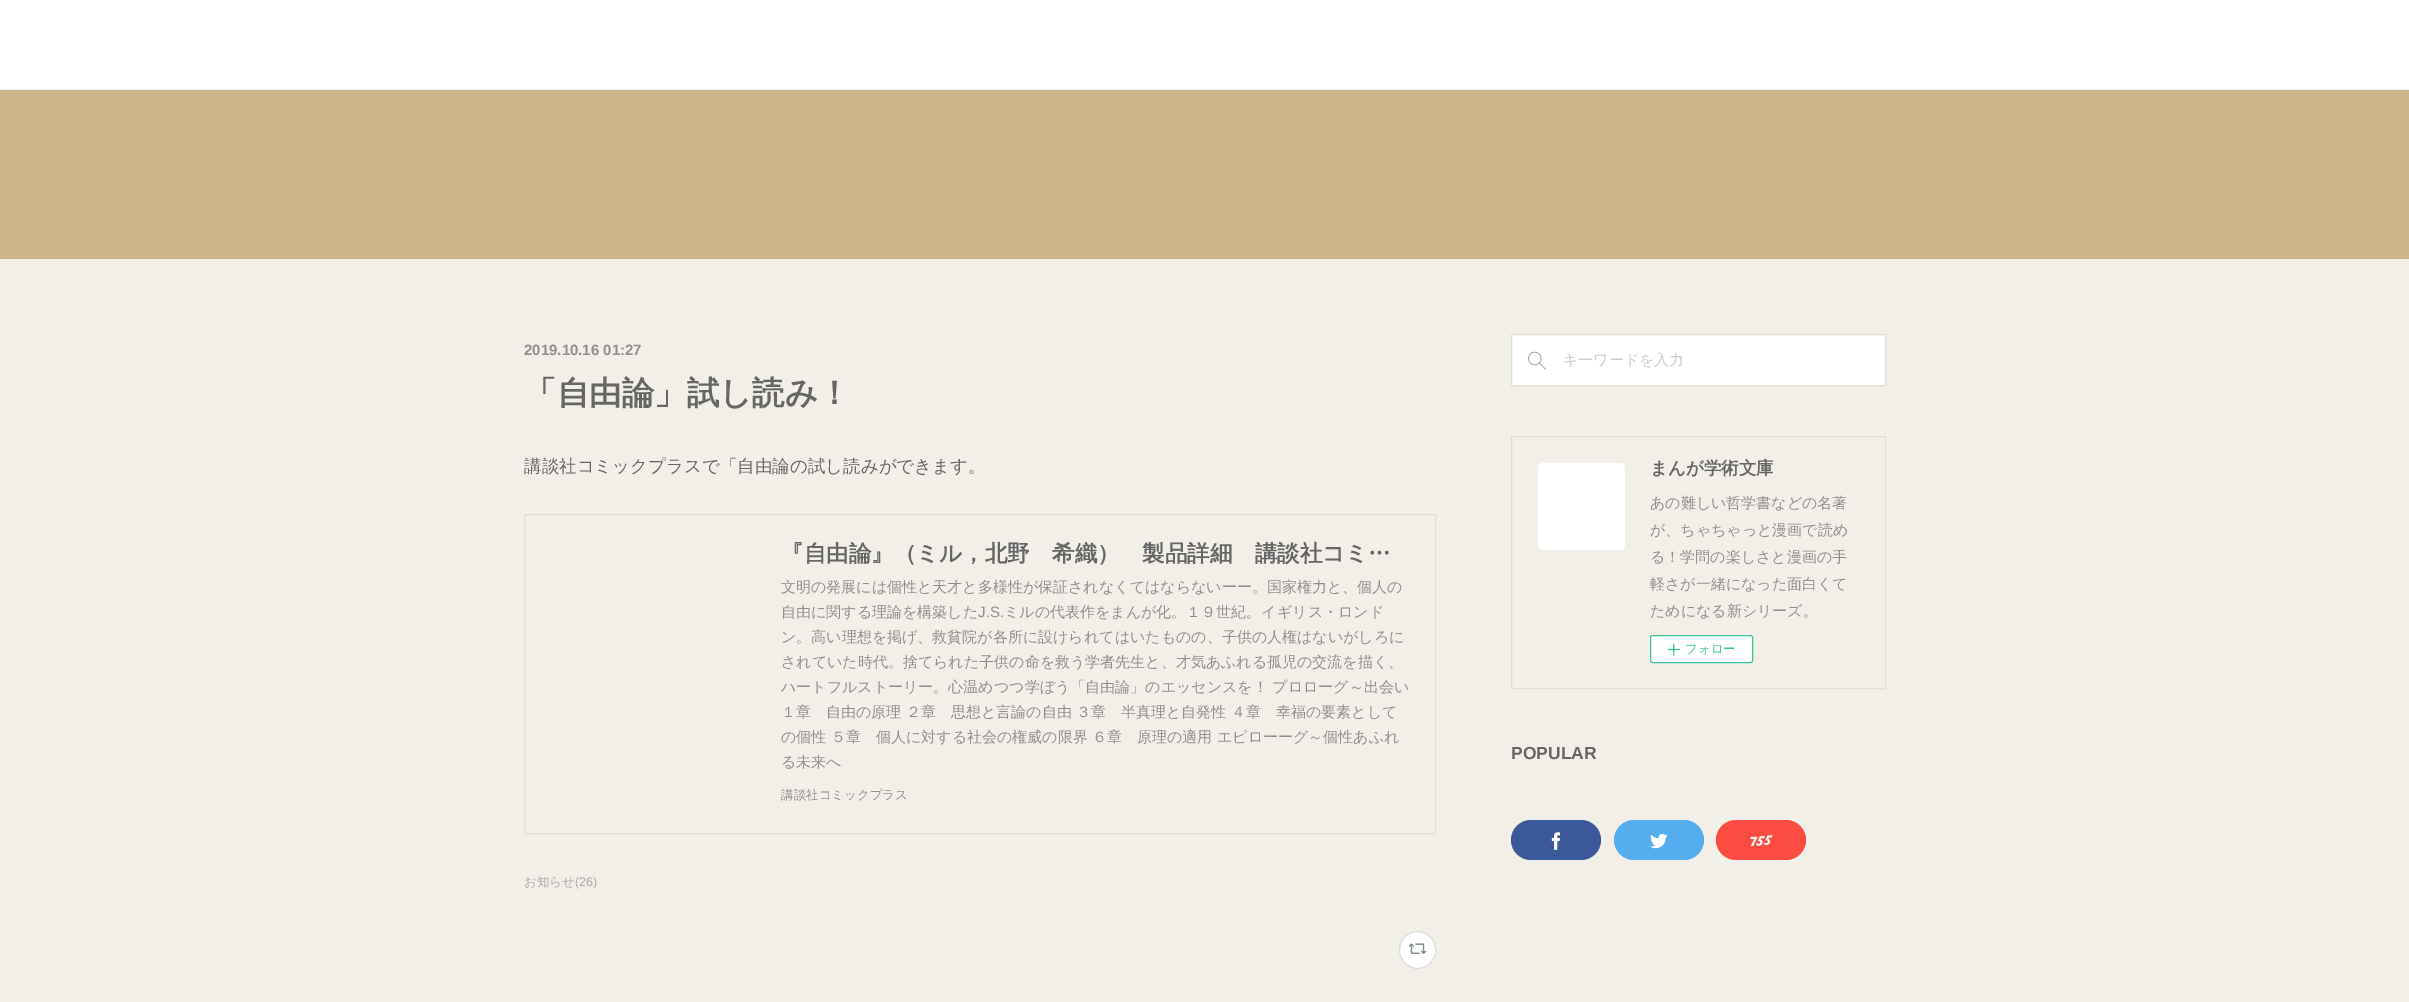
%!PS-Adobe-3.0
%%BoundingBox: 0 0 2409 1002
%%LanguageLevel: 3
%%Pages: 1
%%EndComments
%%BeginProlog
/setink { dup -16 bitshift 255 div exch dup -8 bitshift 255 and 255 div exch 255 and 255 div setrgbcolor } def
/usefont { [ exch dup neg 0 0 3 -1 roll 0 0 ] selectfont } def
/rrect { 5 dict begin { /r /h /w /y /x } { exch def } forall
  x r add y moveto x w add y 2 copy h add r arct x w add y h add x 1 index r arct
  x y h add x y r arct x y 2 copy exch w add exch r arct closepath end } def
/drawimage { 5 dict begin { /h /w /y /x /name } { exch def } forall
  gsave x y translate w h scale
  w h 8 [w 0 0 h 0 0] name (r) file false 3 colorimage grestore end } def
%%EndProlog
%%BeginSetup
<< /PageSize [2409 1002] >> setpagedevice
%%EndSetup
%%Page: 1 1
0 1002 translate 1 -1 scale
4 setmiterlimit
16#F2EFE9 setink
0 0 2409 1002 rectfill
[
    [0 0 2409 89 16#FFFFFF]
    [0 89 2409 1 16#EEEEEE]
    [0 90 2409 169 16#CAB58C]
] { aload pop setink rectfill } forall
/LiberationSans-Bold 15 usefont
16#908F8D setink
524 355 moveto (2019.10.16 01:27) show
/WenQuanYiZenHei-Bold 32.5 usefont
16#666666 setink
524 404 moveto (「自由論」試し読み！) show
/WenQuanYiZenHei-Medium 17.5 usefont
524 472 moveto (講談社コミックプラスで「自由論の試し読みができます。) show
16#E3DED3 setink
524.5 514.5 911 319 rectstroke
/WenQuanYiZenHei-Bold 22.5 usefont
16#666666 setink
781 561 moveto (『自由論』（ミル，北野　希織）　製品詳細　講談社コミ…) show
/WenQuanYiZenHei-Medium 15 usefont
16#908F8D setink
781 592 moveto (文明の発展には個性と天才と多様性が保証されなくてはならないーー。国家権力と、個人の) show
781 617 moveto (自由に関する理論を構築した) show
/LiberationSans-Regular 15 usefont
978 617 moveto (J.S.) show
/WenQuanYiZenHei-Medium 15 usefont
[
    [(ミルの代表作をまんが化。１９世紀。イギリス・ロンド) 1004 617]
    [(ン。高い理想を掲げ、救貧院が各所に設けられてはいたものの、子供の人権はないがしろに) 781 642]
    [(されていた時代。捨てられた子供の命を救う学者先生と、才気あふれる孤児の交流を描く、) 781 667]
    [(ハートフルストーリー。心温めつつ学ぼう「自由論」のエッセンスを！ プロローグ～出会い) 781 692]
    [(１章　自由の原理 ２章　思想と言論の自由) 781 717]
    [(３章　半真理と自発性 ４章　幸福の要素として) 1076 717]
    [(の個性 ５章　個人に対する社会の権威の限界 ６章　原理の適用 エピローーグ～個性あふれ) 781 742]
    [(る未来へ) 781 767]
] { aload pop moveto show } forall
/WenQuanYiZenHei-Medium 12.5 usefont
781 799 moveto (講談社コミックプラス) show
16#ACABA8 setink
524 886 moveto (お知らせ) show
/LiberationSans-Regular 12.5 usefont
575 886 moveto (\(26\)) show
16#FFFFFF setink
1399.5 931.5 36 37 18 rrect gsave fill grestore
16#DDDDDD setink
stroke
(img1.raw) 1408 943 19 11 drawimage
16#FFFFFF setink
1511.5 334.5 moveto 1885.5 334.5 lineto 1885.5 385.5 lineto 1511.5 385.5 lineto closepath gsave fill grestore
16#E3DED3 setink
stroke
(img2.raw) 1528 351 18 19 drawimage
/WenQuanYiZenHei-Medium 15 usefont
16#CCCCCC setink
1563 365 moveto (キーワードを入力) show
16#E3DED3 setink
1511.5 436.5 374 252 rectstroke
16#FFFFFF setink
1538 463 87 87 5 rrect fill
/WenQuanYiZenHei-Bold 17.5 usefont
16#666666 setink
1650 474 moveto (まんが学術文庫) show
/WenQuanYiZenHei-Medium 15 usefont
16#908F8D setink
[
    [(あの難しい哲学書などの名著) 1650 508]
    [(が、ちゃちゃっと漫画で読め) 1650 535]
    [(る！学問の楽しさと漫画の手) 1650 562]
    [(軽さが一緒になった面白くて) 1650 589]
    [(ためになる新シリーズ。) 1650 616]
] { aload pop moveto show } forall
16#FFFFFF setink
1650.5 635.5 102 27 2 rrect gsave fill grestore
16#3DC49D setink
stroke
(img3.raw) 1667 643 13 13 drawimage
/WenQuanYiZenHei-Medium 12.5 usefont
1685 653 moveto (フォロー) show
/LiberationSans-Bold 17.5 usefont
16#666666 setink
1511 759 moveto (POPULAR) show
16#3B5998 setink
1511 820 90 40 20 rrect fill
(img4.raw) 1551 832 9 18 drawimage
16#55ACEE setink
1614 820 90 40 20 rrect fill
(img5.raw) 1650 834 18 15 drawimage
16#FB4C42 setink
1716 820 90 40 20 rrect fill
(img6.raw) 1750 835 23 12 drawimage
showpage
%%EOF
